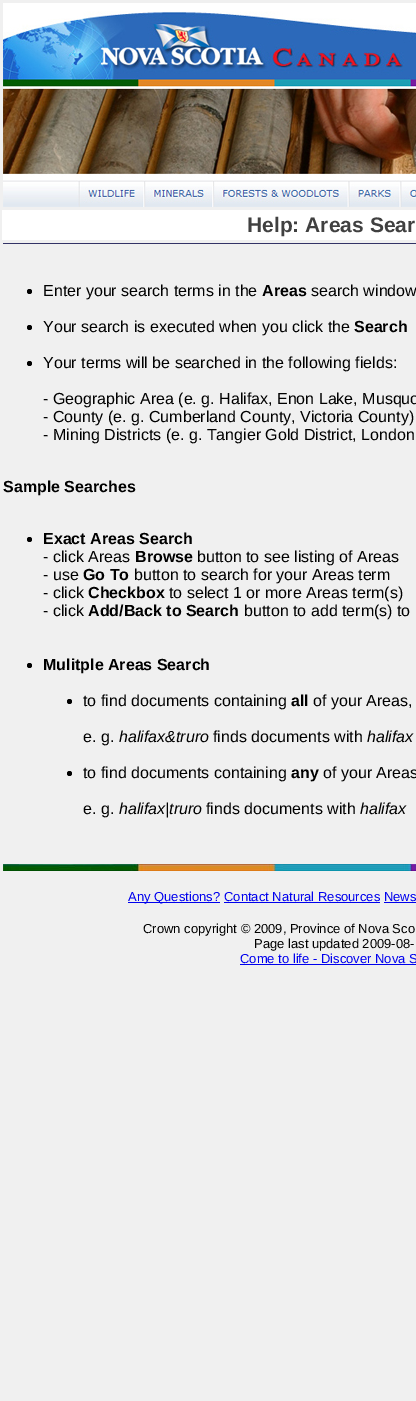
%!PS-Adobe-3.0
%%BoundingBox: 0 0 416 1401
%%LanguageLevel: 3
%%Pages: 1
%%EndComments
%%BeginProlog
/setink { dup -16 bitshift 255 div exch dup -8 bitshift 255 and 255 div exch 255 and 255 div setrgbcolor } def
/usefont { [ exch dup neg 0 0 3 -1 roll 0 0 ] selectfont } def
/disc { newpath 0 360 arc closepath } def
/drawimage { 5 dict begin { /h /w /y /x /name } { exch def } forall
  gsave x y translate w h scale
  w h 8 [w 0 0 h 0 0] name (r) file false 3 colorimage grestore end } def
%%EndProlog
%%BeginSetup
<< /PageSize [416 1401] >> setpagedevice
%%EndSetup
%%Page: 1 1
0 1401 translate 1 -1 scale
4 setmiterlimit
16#F0F0F0 setink
0 0 416 1401 rectfill
(img1.raw) 3 3 413 204 drawimage
16#FFFFFF setink
2 210 414 30 rectfill
/LiberationSans-Bold 21 usefont
16#404040 setink
247 232 moveto (Help: Areas Sear) show
16#333366 setink
3 243 413 1 rectfill
16#000000 setink
29.5 291.5 2.5 disc fill
/LiberationSans-Regular 16 usefont
43 296 moveto (Enter your search terms in the) show
/LiberationSans-Bold 16 usefont
262 296 moveto (Areas) show
/LiberationSans-Regular 16 usefont
311 296 moveto (search window) show
29.5 327.5 2.5 disc fill
43 332 moveto (Your search is executed when you click the) show
/LiberationSans-Bold 16 usefont
354 332 moveto (Search) show
29.5 363.5 2.5 disc fill
/LiberationSans-Regular 16 usefont
[
    [(Your terms will be searched in the following fields:) 43 368]
    [(- Geographic Area \(e. g. Halifax, Enon Lake, Musquo) 43 404]
    [(- County \(e. g. Cumberland County, Victoria County\)) 43 422]
    [(- Mining Districts \(e. g. Tangier Gold District, London) 43 440]
] { aload pop moveto show } forall
/LiberationSans-Bold 16 usefont
3 492 moveto (Sample Searches) show
29.5 539.5 2.5 disc fill
43 544 moveto (Exact Areas Search) show
/LiberationSans-Regular 16 usefont
43 562 moveto (- click Areas) show
/LiberationSans-Bold 16 usefont
135 562 moveto (Browse) show
/LiberationSans-Regular 16 usefont
197 562 moveto (button to see listing of Areas) show
43 580 moveto (- use) show
/LiberationSans-Bold 16 usefont
83 580 moveto (Go To) show
/LiberationSans-Regular 16 usefont
134 580 moveto (button to search for your Areas term) show
43 598 moveto (- click) show
/LiberationSans-Bold 16 usefont
88 598 moveto (Checkbox) show
/LiberationSans-Regular 16 usefont
169 598 moveto (to select 1 or more Areas term\(s\)) show
43 616 moveto (- click) show
/LiberationSans-Bold 16 usefont
88 616 moveto (Add/Back to Search) show
/LiberationSans-Regular 16 usefont
244 616 moveto (button to add term\(s\) to) show
29.5 665.5 2.5 disc fill
/LiberationSans-Bold 16 usefont
43 670 moveto (Mulitple Areas Search) show
69.5 701.5 2.5 disc fill
/LiberationSans-Regular 16 usefont
83 706 moveto (to find documents containing) show
/LiberationSans-Bold 16 usefont
291 706 moveto (all) show
/LiberationSans-Regular 16 usefont
313 706 moveto (of your Areas,) show
83 742 moveto (e. g.) show
/LiberationSans-Italic 16 usefont
119 742 moveto (halifax&truro) show
/LiberationSans-Regular 16 usefont
213 742 moveto (finds documents with) show
/LiberationSans-Italic 16 usefont
367 742 moveto (halifax) show
69.5 773.5 2.5 disc fill
/LiberationSans-Regular 16 usefont
83 778 moveto (to find documents containing) show
/LiberationSans-Bold 16 usefont
291 778 moveto (any) show
/LiberationSans-Regular 16 usefont
323 778 moveto (of your Areas) show
83 814 moveto (e. g.) show
/LiberationSans-Italic 16 usefont
119 814 moveto (halifax|truro) show
/LiberationSans-Regular 16 usefont
206 814 moveto (finds documents with) show
/LiberationSans-Italic 16 usefont
360 814 moveto (halifax) show
(img2.raw) 3 864 413 7 drawimage
16#0000EE setink
128 902 92 1 rectfill
/LiberationSans-Regular 13 usefont
128 901 moveto (Any Questions?) show
224 901 moveto (Contact Natural Resources News) show
224 902 156 1 rectfill
384 902 32 1 rectfill
16#000000 setink
143 933 moveto (Crown copyright © 2009, Province of Nova Sco) show
254 948 moveto (Page last updated 2009-08-) show
16#0000EE setink
240 963 moveto (Come to life - Discover Nova S) show
240 964 176 1 rectfill
showpage
%%EOF
